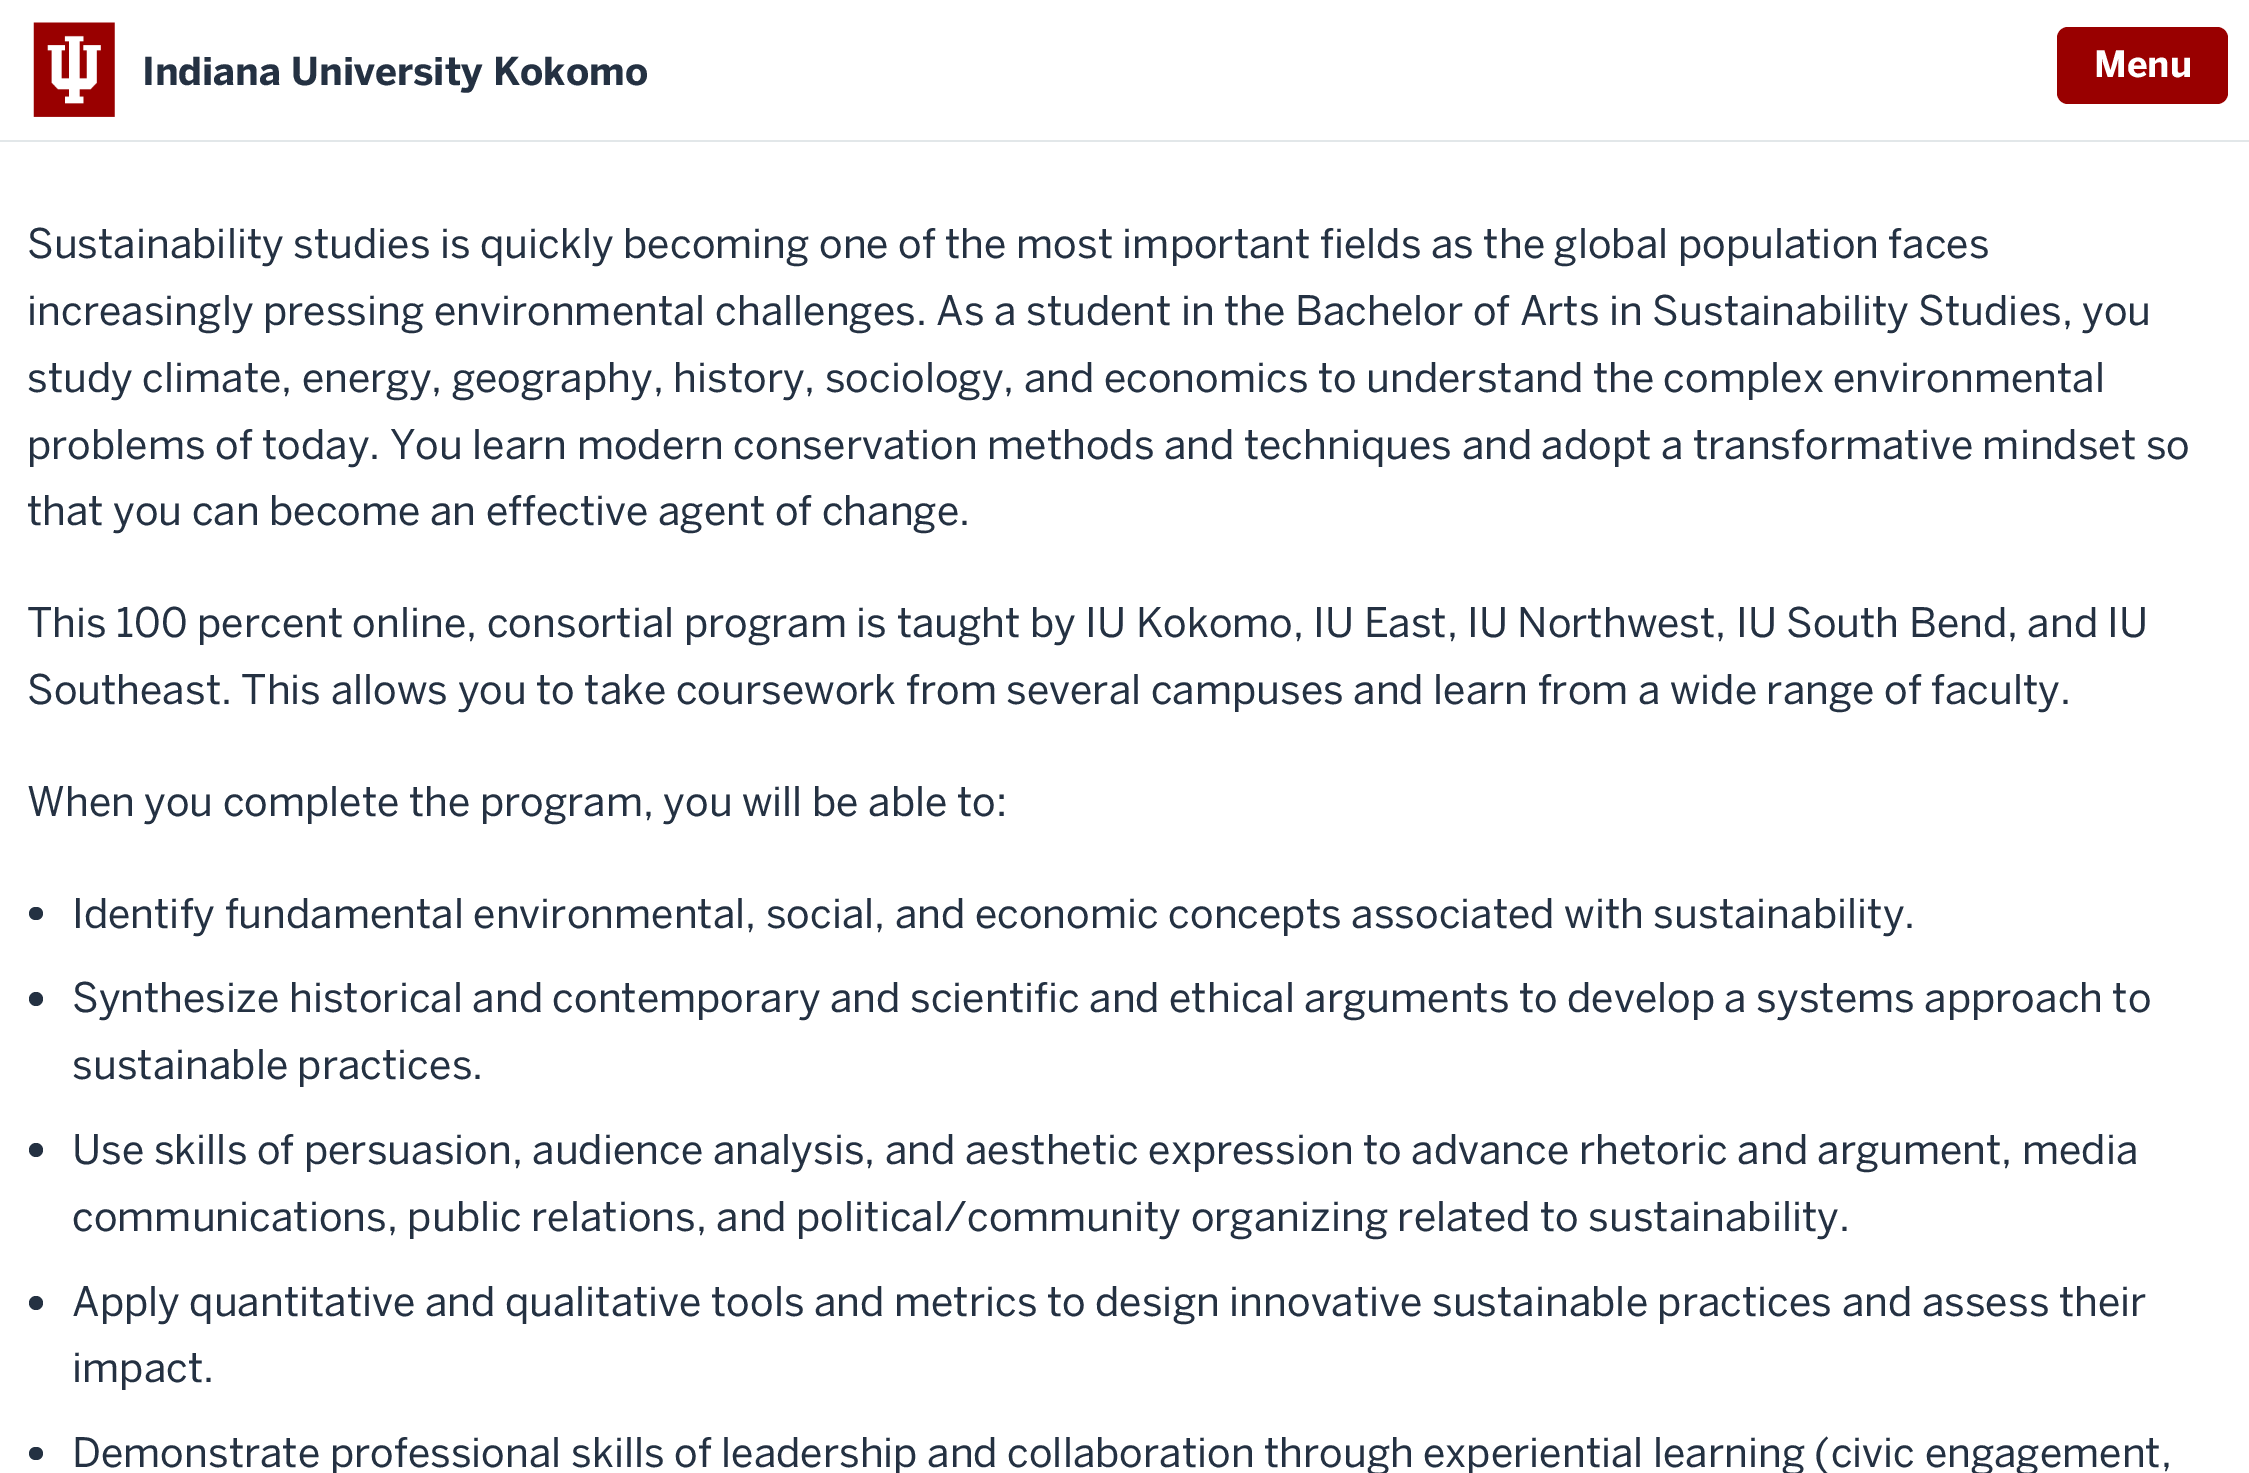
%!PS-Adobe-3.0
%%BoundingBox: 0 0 2249 1473
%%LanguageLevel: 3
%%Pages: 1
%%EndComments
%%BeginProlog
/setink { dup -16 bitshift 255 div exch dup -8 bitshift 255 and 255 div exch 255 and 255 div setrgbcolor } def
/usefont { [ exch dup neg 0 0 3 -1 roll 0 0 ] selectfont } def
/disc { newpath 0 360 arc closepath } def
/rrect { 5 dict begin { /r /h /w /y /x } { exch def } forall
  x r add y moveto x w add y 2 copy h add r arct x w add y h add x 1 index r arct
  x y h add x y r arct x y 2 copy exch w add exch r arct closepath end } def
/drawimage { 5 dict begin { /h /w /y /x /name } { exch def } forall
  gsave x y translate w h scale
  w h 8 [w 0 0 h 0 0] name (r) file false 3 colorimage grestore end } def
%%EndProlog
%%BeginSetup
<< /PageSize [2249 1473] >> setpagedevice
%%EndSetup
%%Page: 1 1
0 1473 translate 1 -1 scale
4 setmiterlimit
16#FFFFFF setink
0 0 2249 1473 rectfill
16#E2E7E9 setink
0 140 2249 2 rectfill
(img1.raw) 33 22 82 95 drawimage
/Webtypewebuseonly-Bold 38.25 usefont
16#243142 setink
142 85 moveto (Indiana University Kokomo) show
16#990000 setink
2057 27 171 77 11 rrect fill
/Webtypewebuseonly-Bold 36 usefont
16#FFFFFF setink
2094 77 moveto (Menu) show
/Webtypewebuseonly-Regular 40.5 usefont
16#243142 setink
[
    [(Sustainability studies is quickly becoming one of the most important fields as the global population faces) 27 258]
    [(increasingly pressing environmental challenges. As a student in the Bachelor of Arts in Sustainability Studies, you) 27 325]
    [(study climate, energy, geography, history, sociology, and economics to understand the complex environmental) 27 392]
    [(problems of today. You learn modern conservation methods and techniques and adopt a transformative mindset so) 27 459]
    [(that you can become an effective agent of change.) 27 525]
    [(This 100 percent online, consortial program is taught by IU Kokomo, IU East, IU Northwest, IU South Bend, and IU) 27 637]
    [(Southeast. This allows you to take coursework from several campuses and learn from a wide range of faculty.) 27 704]
    [(When you complete the program, you will be able to:) 27 816]
] { aload pop moveto show } forall
29 907 14 13 6.5 rrect fill
72 928 moveto (Identify fundamental environmental, social, and economic concepts associated with sustainability.) show
36 999 7 disc fill
72 1012 moveto (Synthesize historical and contemporary and scientific and ethical arguments to develop a systems approach to) show
72 1079 moveto (sustainable practices.) show
36 1150 7 disc fill
72 1164 moveto (Use skills of persuasion, audience analysis, and aesthetic expression to advance rhetoric and argument, media) show
72 1231 moveto (communications, public relations, and political/community organizing related to sustainability.) show
36 1303 7 disc fill
72 1316 moveto (Apply quantitative and qualitative tools and metrics to design innovative sustainable practices and assess their) show
72 1382 moveto (impact.) show
29 1447 14 13 6.5 rrect fill
72 1467 moveto (Demonstrate professional skills of leadership and collaboration through experiential learning \(civic engagement,) show
showpage
%%EOF
